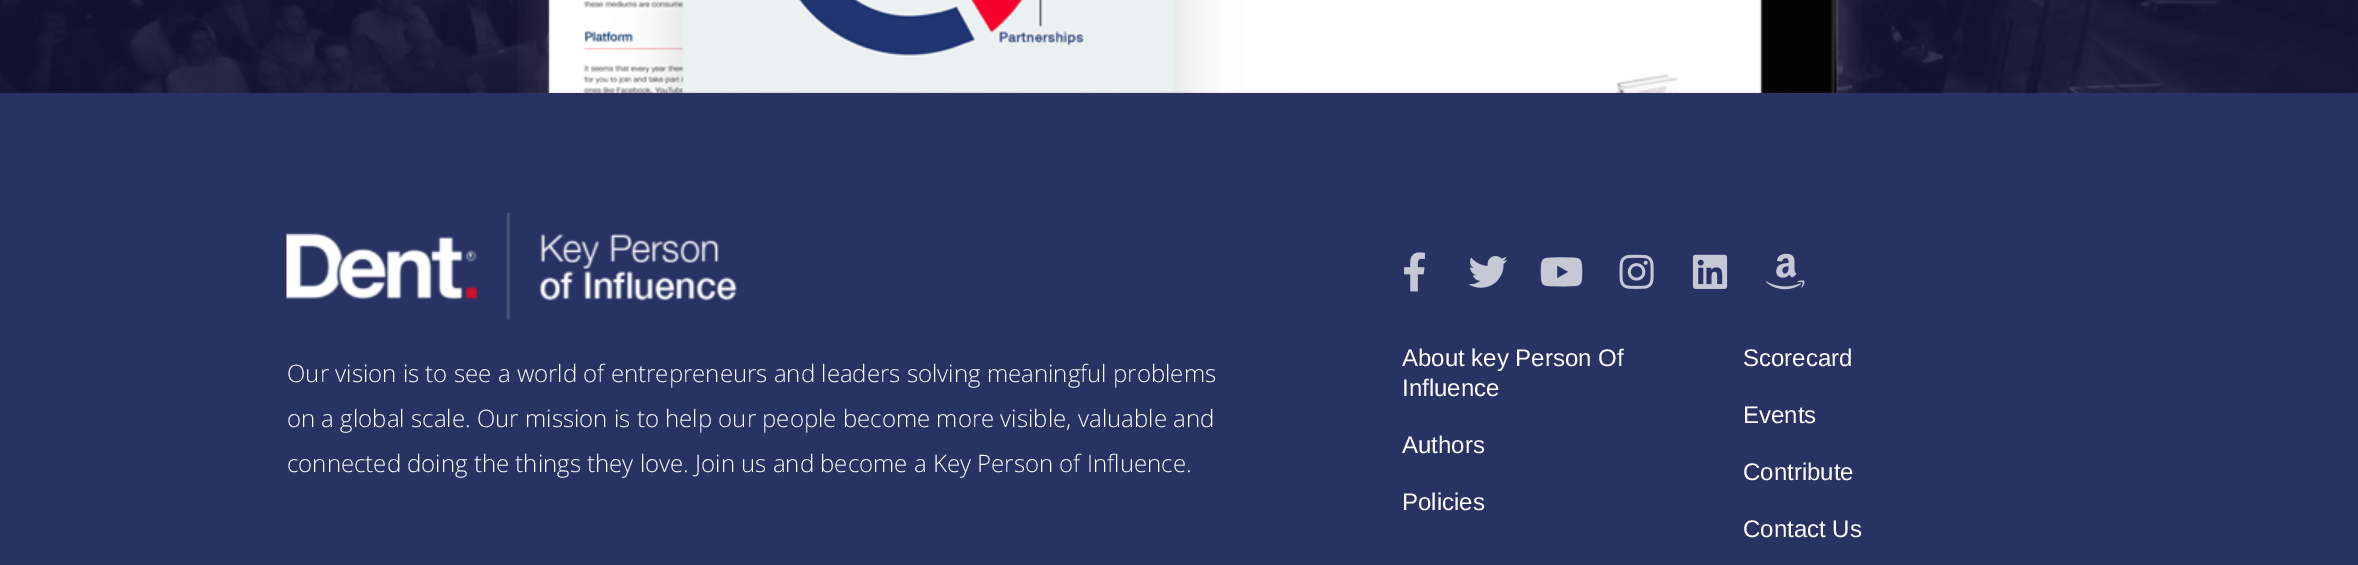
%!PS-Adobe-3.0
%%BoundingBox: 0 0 2358 565
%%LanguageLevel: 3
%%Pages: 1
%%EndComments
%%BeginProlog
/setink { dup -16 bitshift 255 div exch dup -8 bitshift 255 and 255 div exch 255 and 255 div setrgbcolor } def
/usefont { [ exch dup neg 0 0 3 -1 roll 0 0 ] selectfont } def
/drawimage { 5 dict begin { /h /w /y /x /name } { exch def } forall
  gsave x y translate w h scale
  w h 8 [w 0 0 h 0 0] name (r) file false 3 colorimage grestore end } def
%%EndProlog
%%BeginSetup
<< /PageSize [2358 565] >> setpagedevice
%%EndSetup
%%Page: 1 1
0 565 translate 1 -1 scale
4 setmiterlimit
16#FFFFFF setink
0 0 2358 565 rectfill
(img1.raw) 0 0 2358 93 drawimage
(img2.raw) 517 0 1344 93 drawimage
16#283364 setink
0 93 2358 472 rectfill
(img3.raw) 286 213 451 107 drawimage
/OpenSans-Light 24 usefont
16#FFFFFF setink
[
    [(Our vision is to see a world of entrepreneurs and leaders solving meaningful problems) 287 382]
    [(on a global scale. Our mission is to help our people become more visible, valuable and) 287 427]
    [(connected doing the things they love. Join us and become a Key Person of Influence.) 287 472]
] { aload pop moveto show } forall
(img4.raw) 1404 252 21 40 drawimage
(img5.raw) 1468 256 40 32 drawimage
(img6.raw) 1540 257 43 30 drawimage
(img7.raw) 1619 254 35 35 drawimage
(img8.raw) 1692 254 36 35 drawimage
(img9.raw) 1766 253 39 37 drawimage
/LiberationSans-Regular 24 usefont
[
    [(About key Person Of) 1402 366]
    [(Influence) 1402 396]
    [(Authors) 1402 453]
    [(Policies) 1402 510]
    [(Scorecard) 1743 366]
    [(Events) 1743 423]
    [(Contribute) 1743 480]
    [(Contact Us) 1743 537]
] { aload pop moveto show } forall
showpage
%%EOF
